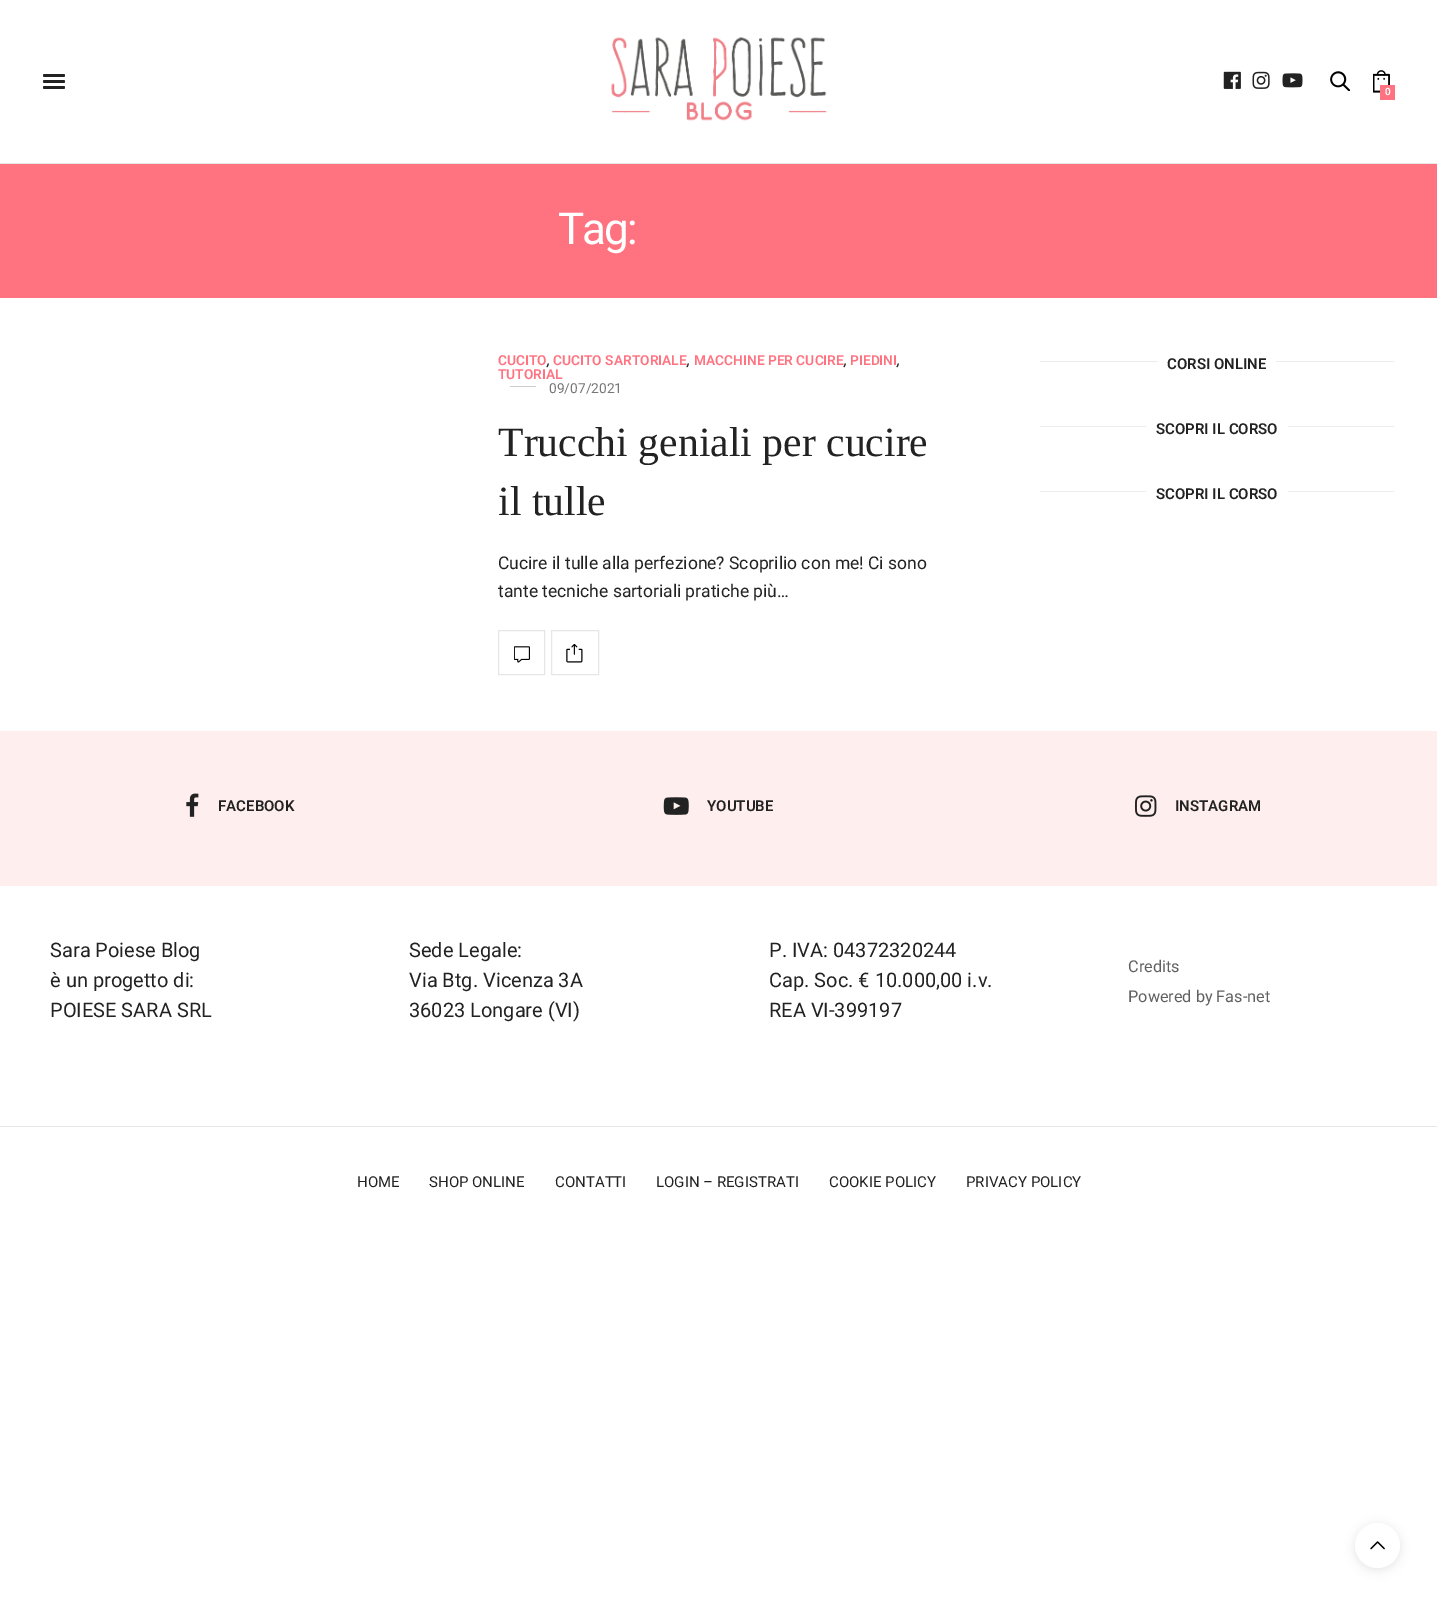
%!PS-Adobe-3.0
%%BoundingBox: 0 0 1437 1604
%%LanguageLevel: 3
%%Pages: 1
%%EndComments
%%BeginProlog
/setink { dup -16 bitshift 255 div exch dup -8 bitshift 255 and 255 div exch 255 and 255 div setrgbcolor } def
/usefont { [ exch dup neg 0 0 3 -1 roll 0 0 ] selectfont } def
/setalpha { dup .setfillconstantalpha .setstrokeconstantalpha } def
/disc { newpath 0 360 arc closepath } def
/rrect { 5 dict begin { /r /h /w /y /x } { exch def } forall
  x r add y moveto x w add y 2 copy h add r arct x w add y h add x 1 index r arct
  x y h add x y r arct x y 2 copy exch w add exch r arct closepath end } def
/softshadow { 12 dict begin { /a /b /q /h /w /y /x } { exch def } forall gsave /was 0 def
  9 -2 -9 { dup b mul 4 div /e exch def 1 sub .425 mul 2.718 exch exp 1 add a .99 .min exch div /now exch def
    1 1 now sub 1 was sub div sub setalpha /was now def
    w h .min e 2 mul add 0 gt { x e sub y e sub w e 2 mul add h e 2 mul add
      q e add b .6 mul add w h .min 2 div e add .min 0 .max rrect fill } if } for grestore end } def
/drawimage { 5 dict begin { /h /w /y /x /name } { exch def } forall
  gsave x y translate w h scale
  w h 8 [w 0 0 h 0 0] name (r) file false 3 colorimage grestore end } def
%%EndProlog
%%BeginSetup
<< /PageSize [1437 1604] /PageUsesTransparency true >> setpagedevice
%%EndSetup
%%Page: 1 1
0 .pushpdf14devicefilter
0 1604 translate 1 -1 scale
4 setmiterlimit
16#FFFFFF setink
0 0 1437 1604 rectfill
16#E6E6E6 setink
0 163 1437 1 rectfill
16#222222 setink
43 74 22 3 1.5 rrect fill
43 80 22 3 1.5 rrect fill
43 86 22 3 1.5 rrect fill
(img1.raw) 611 37 216 84 drawimage
(img2.raw) 1223 71 18 18 drawimage
(img3.raw) 1252 71 18 18 drawimage
(img4.raw) 1282 73 21 15 drawimage
(img5.raw) 1330 71 20 20 drawimage
(img6.raw) 1373 70 17 23 drawimage
16#FF7380 setink
1380 85 15 15 rectfill
/Roboto-SemiBold 10 usefont
16#FFFFFF setink
1385 95 moveto (0) show
16#FF7380 setink
0 164 1437 134 rectfill
/Roboto-Regular 44 usefont
16#FFFFFF setink
558 244 moveto -2 0 (Tag:) ashow
/Roboto-SemiBold 13.75 usefont
16#FF7380 setink
[
    [(CUCITO) 498 365]
    [(CUCITO SARTORIALE) 553 365]
    [(MACCHINE PER CUCIRE) 694 365]
    [(PIEDINI) 850 365]
] { aload pop moveto show } forall
/Roboto-SemiBoldItalic 13.75 usefont
16#222222 setink
[
    [(,) 547 365]
    [(,) 687 365]
    [(,) 844 365]
    [(,) 897 365]
] { aload pop moveto show } forall
/Roboto-SemiBold 13.75 usefont
16#FF7380 setink
498 379 moveto (TUTORIAL) show
16#CCCCCC setink
510 386 26 1 rectfill
/Roboto-Regular 13.75 usefont
16#767676 setink
549 393 moveto (09/07/2021) show
/LiberationSerif-Regular 41.75 usefont
16#222222 setink
498 456 moveto (Trucchi geniali per cucire) show
498 515 moveto (il tulle) show
/Roboto-Regular 17.5 usefont
498 569 moveto (Cucire il tulle alla perfezione? Scoprilio con me! Ci sono) show
498 597 moveto (tante tecniche sartoriali pratiche più…) show
16#E6E6E6 setink
498.5 630.5 46 44 rectstroke
(img7.raw) 514 646 16 17 drawimage
551.5 630.5 47 44 rectstroke
(img8.raw) 566 644 17 19 drawimage
16#EDEDED setink
1040 361 354 1 rectfill
16#FFFFFF setink
1158 361 118 1 rectfill
/Roboto-SemiBold 15 usefont
16#222222 setink
1167 369 moveto (CORSI ONLINE) show
16#EDEDED setink
1040 426 354 1 rectfill
16#FFFFFF setink
1146 426 142 1 rectfill
16#222222 setink
1156 434 moveto (SCOPRI IL CORSO) show
16#EDEDED setink
1040 491 354 1 rectfill
16#FFFFFF setink
1146 491 142 1 rectfill
16#222222 setink
1156 499 moveto (SCOPRI IL CORSO) show
16#FEEEEE setink
0 731 1437 155 rectfill
(img9.raw) 186 793 13 24 drawimage
16#222222 setink
218 811 moveto (FACEBOOK) show
(img10.raw) 663 797 26 18 drawimage
707 811 moveto (YOUTUBE) show
(img11.raw) 1135 795 22 22 drawimage
1175 811 moveto (INSTAGRAM) show
/Roboto-Regular 20 usefont
[
    [(Sara Poiese Blog) 50 957]
    [(è un progetto di:) 50 987]
    [(POIESE SARA SRL) 50 1017]
    [(Sede Legale:) 409 957]
    [(Via Btg. Vicenza 3A) 409 987]
    [(36023 Longare \(VI\)) 409 1017]
    [(P. IVA: 04372320244) 769 957]
    [(Cap. Soc. € 10.000,00 i.v.) 769 987]
    [(REA VI-399197) 769 1017]
] { aload pop moveto show } forall
/Roboto-Regular 16.25 usefont
16#606060 setink
1128 972 moveto (Credits) show
1128 1002 moveto (Powered by Fas-net) show
16#E6E6E6 setink
0 1126 1437 1 rectfill
/Roboto-Regular 15 usefont
16#222222 setink
[
    [(HOME) 357 1187]
    [(SHOP ONLINE) 429 1187]
    [(CONTATTI) 555 1187]
    [(LOGIN – REGISTRATI) 656 1187]
    [(COOKIE POLICY) 829 1187]
    [(PRIVACY POLICY) 966 1187]
] { aload pop moveto show } forall
16#000000 setink
1355 1525 45 45 22.5 5 0.1 softshadow
16#FFFFFF setink
1377.5 1545.5 22.5 disc fill
(img12.raw) 1370 1541 15 9 drawimage
.poppdf14devicefilter showpage
%%EOF
